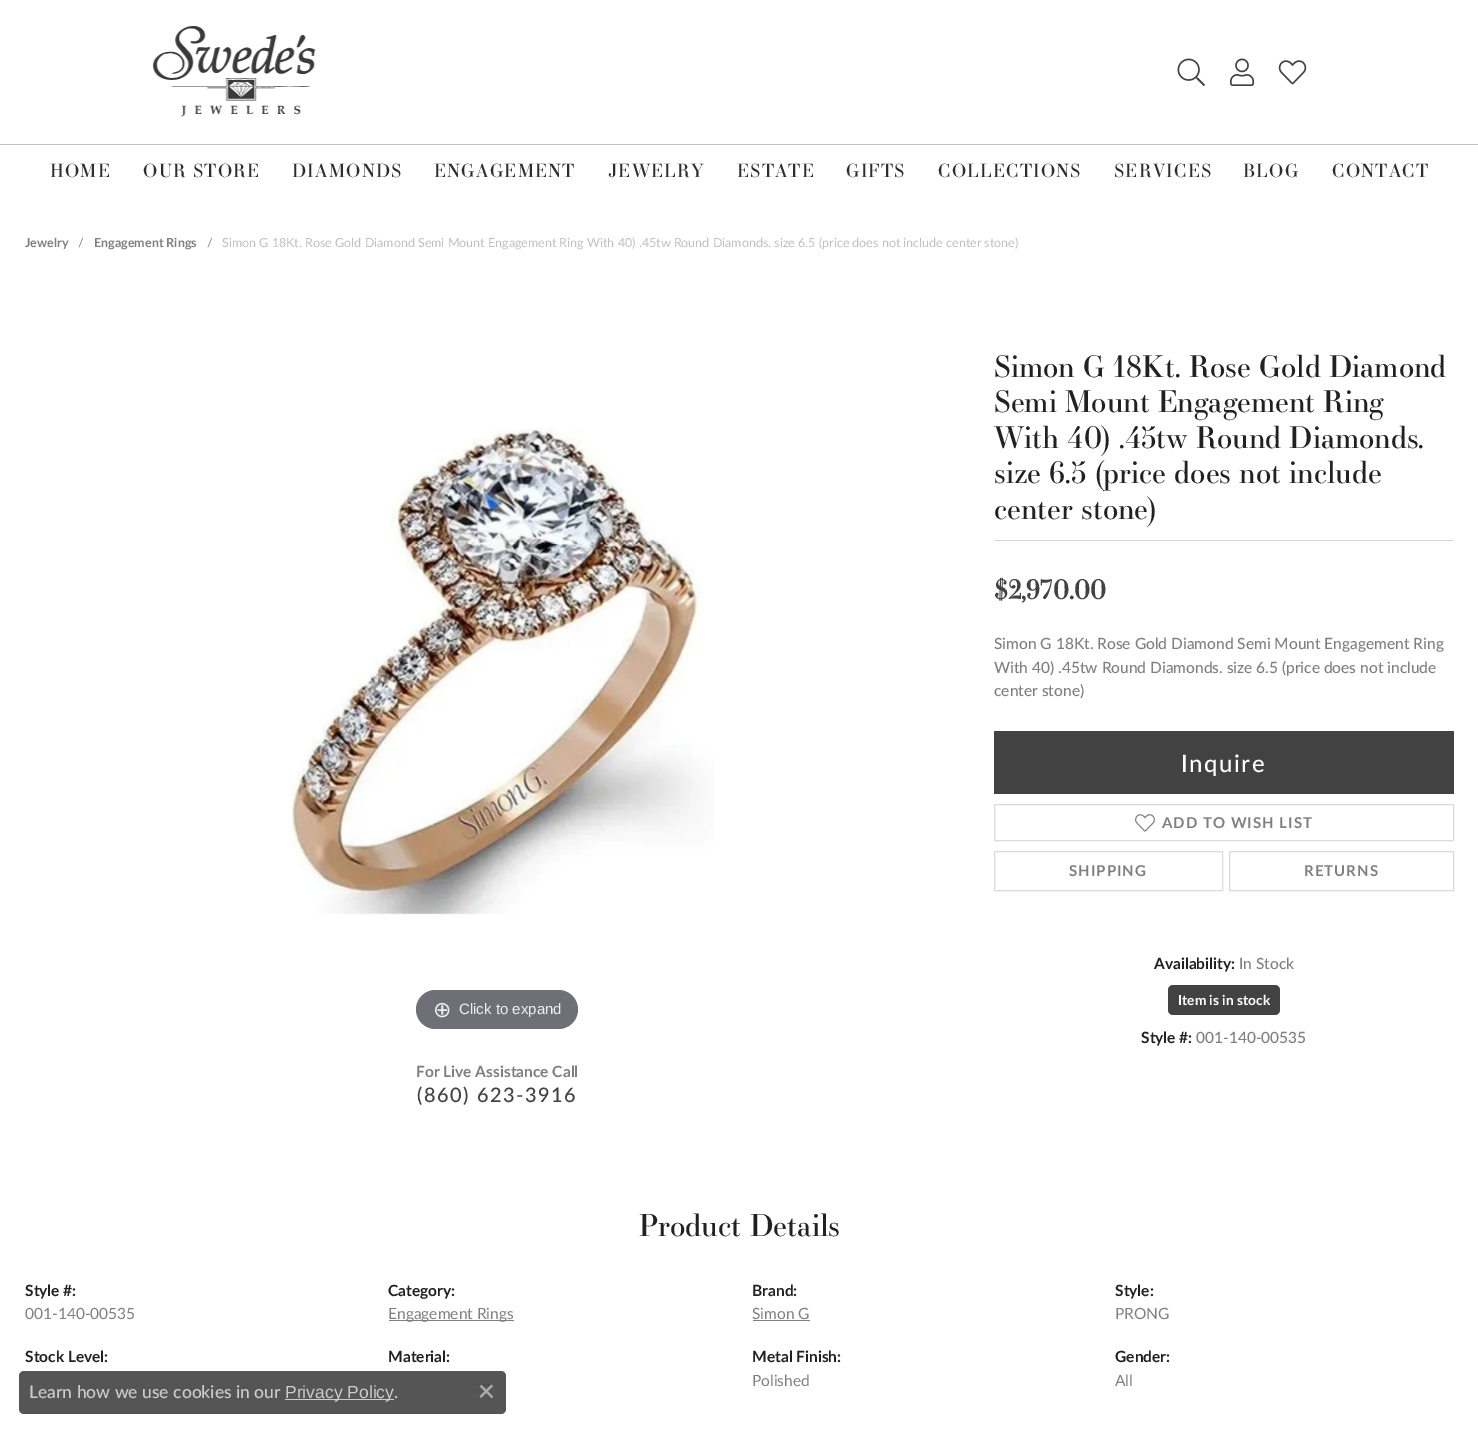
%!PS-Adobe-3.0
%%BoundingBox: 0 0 1478 1432
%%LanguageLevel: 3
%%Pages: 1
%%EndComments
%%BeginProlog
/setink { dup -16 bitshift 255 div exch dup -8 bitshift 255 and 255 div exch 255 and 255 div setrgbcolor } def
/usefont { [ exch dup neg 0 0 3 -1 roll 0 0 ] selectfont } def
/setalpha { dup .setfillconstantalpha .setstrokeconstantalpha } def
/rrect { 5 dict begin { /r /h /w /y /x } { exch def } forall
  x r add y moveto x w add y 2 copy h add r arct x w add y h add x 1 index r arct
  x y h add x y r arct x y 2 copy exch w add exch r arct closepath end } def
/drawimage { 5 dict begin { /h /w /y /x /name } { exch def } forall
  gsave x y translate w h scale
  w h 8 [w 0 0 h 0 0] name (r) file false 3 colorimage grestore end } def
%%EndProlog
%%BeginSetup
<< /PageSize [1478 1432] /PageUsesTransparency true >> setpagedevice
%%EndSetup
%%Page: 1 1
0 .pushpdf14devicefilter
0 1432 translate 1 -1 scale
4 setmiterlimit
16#FFFFFF setink
0 0 1478 1432 rectfill
16#C3C3C3 setink
0 144 1478 1 rectfill
(img1.raw) 152 26 164 91 drawimage
(img2.raw) 1177 58 28 28 drawimage
(img3.raw) 1230 58 25 28 drawimage
(img4.raw) 1278 60 29 25 drawimage
/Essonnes-Regular 18 usefont
16#2D2D2D setink
50 177 moveto 1.25 0 (HOME) ashow
143 177 moveto 1.25 0 (OUR STORE) ashow
292 177 moveto 1.25 0 (DIAMONDS) ashow
434 177 moveto 1.25 0 (ENGAGEMENT) ashow
608 177 moveto 1.25 0 (JEWELRY) ashow
737 177 moveto 1.25 0 (ESTATE) ashow
846 177 moveto 1.25 0 (GIFTS) ashow
938 177 moveto 1.25 0 (COLLECTIONS) ashow
1114 177 moveto 1.25 0 (SERVICES) ashow
1243 177 moveto 1.25 0 (BLOG) ashow
1332 177 moveto 1.25 0 (CONTACT) ashow
/Lato-Bold 12.5 usefont
16#7F7F7F setink
25 247 moveto (Jewelry) show
/Lato-Regular 12.5 usefont
16#858585 setink
78 247 moveto (/) show
/Lato-Bold 12.5 usefont
16#7F7F7F setink
94 247 moveto (Engagement Rings) show
/Lato-Regular 12.5 usefont
16#858585 setink
207 247 moveto (/) show
16#BFBFBF setink
222 247 moveto (Simon G 18Kt. Rose Gold Diamond Semi Mount Engagement Ring With 40\) .45tw Round Diamonds. size 6.5 \(price does not include center stone\)) show
(img5.raw) 290 428 424 487 drawimage
16#6F7077 setink
416 990 162 39 19.5 rrect fill
/DejaVuSans-Regular 22 usefont
16#EEEEEE setink
433 1017 moveto (⊕) show
/LiberationSans-Regular 15 usefont
459 1014 moveto (Click to expand) show
/Lato-Bold 15.5 usefont
16#7F7F7F setink
416 1077 moveto (For Live Assistance Call) show
/Lato-Medium 20 usefont
16#424242 setink
417 1102 moveto 1.5 0 (\(860\) 623-3916) ashow
/Essonnes-Regular 29.6 usefont
16#212121 setink
[
    [(Simon G 18Kt. Rose Gold Diamond) 994 377]
    [(Semi Mount Engagement Ring) 994 412]
    [(With 40\) .45tw Round Diamonds.) 994 448]
    [(size 6.5 \(price does not include) 994 483]
    [(center stone\)) 994 519]
] { aload pop moveto show } forall
16#D7D7D7 setink
994 540 460 1 rectfill
/Essonnes-Bold 26 usefont
16#424242 setink
994 599 moveto ($2,970.00) show
/Lato-Medium 15.5 usefont
16#7F7F7F setink
[
    [(Simon G 18Kt. Rose Gold Diamond Semi Mount Engagement Ring) 994 649]
    [(With 40\) .45tw Round Diamonds. size 6.5 \(price does not include) 994 673]
    [(center stone\)) 994 696]
] { aload pop moveto show } forall
16#424242 setink
994 731 460 63 rectfill
/Lato-Medium 24 usefont
16#FFFFFF setink
1181 772 moveto 1.5 0 (Inquire) ashow
16#DBDBDB setink
994.5 804.5 459 36 rectstroke
(img6.raw) 1135 814 20 18 drawimage
/Lato-Bold 15 usefont
16#7F7F7F setink
1162 828 moveto 1 0 (ADD TO WISH LIST) ashow
16#DBDBDB setink
994.5 851.5 228 39 rectstroke
16#7F7F7F setink
1069 876 moveto 1 0 (SHIPPING) ashow
16#DBDBDB setink
1229.5 851.5 224 39 rectstroke
16#7F7F7F setink
1304 876 moveto 1 0 (RETURNS) ashow
/Lato-Bold 15.5 usefont
16#212121 setink
1154 969 moveto (Availability:) show
/Lato-Medium 15.5 usefont
16#7F7F7F setink
1239 969 moveto (In Stock) show
16#424242 setink
1168 985 112 30 5 rrect fill
/Lato-Bold 13.75 usefont
16#FFFFFF setink
1178 1005 moveto (Item is in stock) show
/Lato-Bold 15.5 usefont
16#212121 setink
1141 1043 moveto (Style #:) show
/Lato-Medium 15.5 usefont
16#7F7F7F setink
1196 1043 moveto (001-140-00535) show
/Essonnes-Regular 30 usefont
16#212121 setink
639 1236 moveto (Product Details) show
/Lato-Bold 15.5 usefont
25 1296 moveto (Style #:) show
/Lato-Regular 15.5 usefont
16#7F7F7F setink
25 1319 moveto (001-140-00535) show
/Lato-Bold 15.5 usefont
16#212121 setink
25 1362 moveto (Stock Level:) show
388 1296 moveto (Category:) show
16#7F7F7F setink
389 1320 125 1 rectfill
/Lato-Regular 15.5 usefont
388 1319 moveto (Engagement Rings) show
/Lato-Bold 15.5 usefont
16#212121 setink
388 1362 moveto (Material:) show
752 1296 moveto (Brand:) show
/Lato-Regular 15.5 usefont
16#7F7F7F setink
752 1319 moveto (Simon G) show
753 1320 57 1 rectfill
/Lato-Bold 15.5 usefont
16#212121 setink
752 1362 moveto (Metal Finish:) show
/Lato-Regular 15.5 usefont
16#7F7F7F setink
752 1386 moveto (Polished) show
/Lato-Bold 15.5 usefont
16#212121 setink
1115 1296 moveto (Style:) show
/Lato-Regular 15.5 usefont
16#7F7F7F setink
1115 1319 moveto (PRONG) show
/Lato-Bold 15.5 usefont
16#212121 setink
1115 1362 moveto (Gender:) show
/Lato-Regular 15.5 usefont
16#7F7F7F setink
1115 1386 moveto (All) show
0.9 setalpha
16#424242 setink
19 1371 487 43 5 rrect fill
/Lato-Medium 17.5 usefont
1 setalpha
16#CCCCCC setink
29 1398 moveto (Learn how we use cookies in our) show
285 1399 109 1 rectfill
/LiberationSans-Regular 17.5 usefont
285 1398 moveto (Privacy Policy) show
/Lato-Medium 17.5 usefont
394 1398 moveto (.) show
(img7.raw) 479 1384 15 15 drawimage
.poppdf14devicefilter showpage
%%EOF
